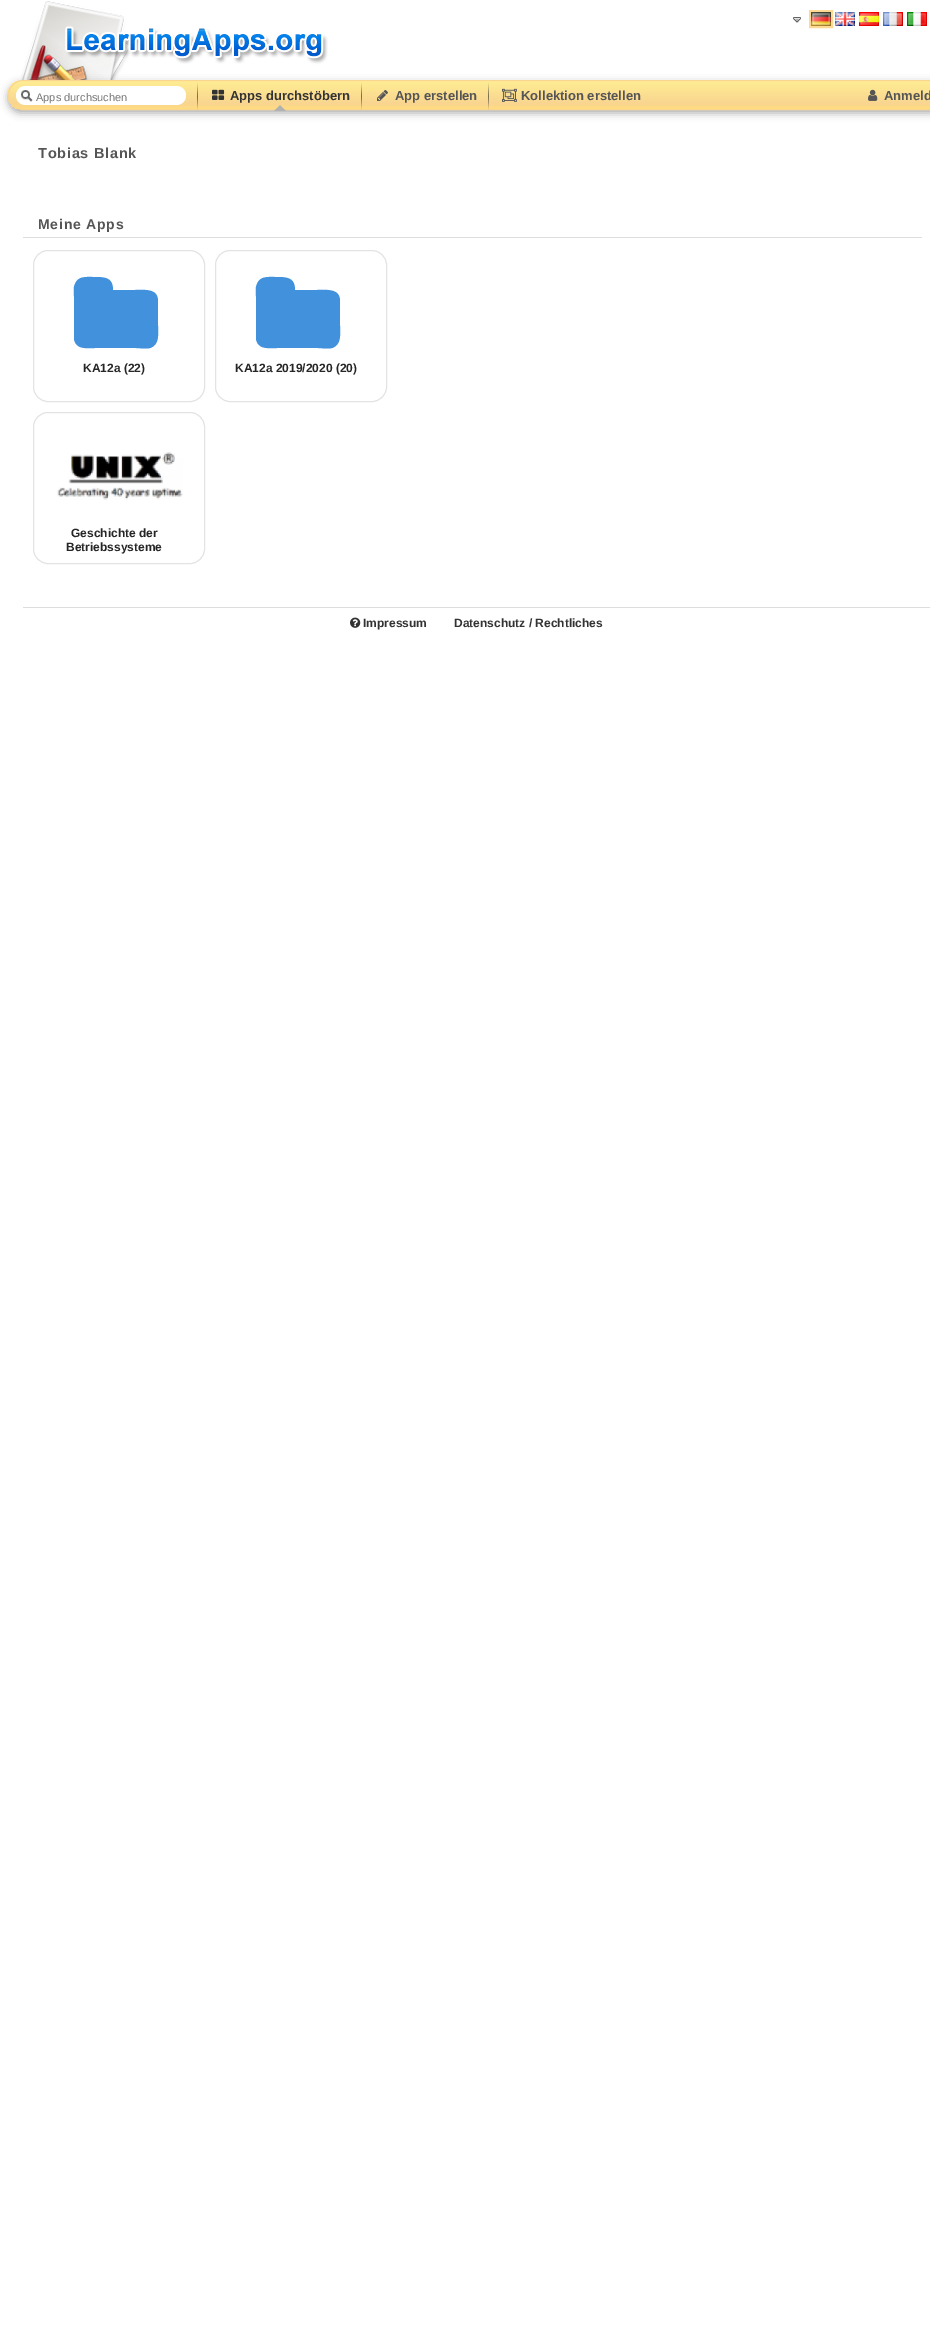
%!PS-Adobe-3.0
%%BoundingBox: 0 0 930 2339
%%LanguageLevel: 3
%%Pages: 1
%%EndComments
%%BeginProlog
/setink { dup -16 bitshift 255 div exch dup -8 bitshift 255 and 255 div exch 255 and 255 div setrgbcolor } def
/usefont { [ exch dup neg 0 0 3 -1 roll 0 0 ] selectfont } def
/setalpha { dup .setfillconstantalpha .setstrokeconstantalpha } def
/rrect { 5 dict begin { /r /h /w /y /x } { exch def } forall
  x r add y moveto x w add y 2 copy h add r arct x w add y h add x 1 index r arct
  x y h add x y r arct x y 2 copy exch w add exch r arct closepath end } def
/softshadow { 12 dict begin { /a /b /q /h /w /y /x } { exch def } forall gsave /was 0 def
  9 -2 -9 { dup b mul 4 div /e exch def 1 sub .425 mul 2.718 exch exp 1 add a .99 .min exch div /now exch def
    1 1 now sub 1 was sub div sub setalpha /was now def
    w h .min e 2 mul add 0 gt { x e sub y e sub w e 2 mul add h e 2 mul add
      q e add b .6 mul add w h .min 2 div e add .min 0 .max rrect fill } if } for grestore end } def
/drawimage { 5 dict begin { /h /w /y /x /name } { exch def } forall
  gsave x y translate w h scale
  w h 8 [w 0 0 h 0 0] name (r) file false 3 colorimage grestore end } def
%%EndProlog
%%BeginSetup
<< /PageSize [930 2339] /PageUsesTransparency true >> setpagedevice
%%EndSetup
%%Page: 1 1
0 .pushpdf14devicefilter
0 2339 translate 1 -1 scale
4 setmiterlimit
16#FFFFFF setink
0 0 930 2339 rectfill
(img1.raw) 21 1 307 79 drawimage
16#FED993 setink
2 setlinewidth
810 11 22 16 rectstroke
(img2.raw) 793 17 8 6 drawimage
(img3.raw) 811 12 20 14 drawimage
(img4.raw) 835 12 20 14 drawimage
(img5.raw) 859 12 20 14 drawimage
(img6.raw) 883 12 20 14 drawimage
(img7.raw) 907 12 20 14 drawimage
16#AAAAAA setink
8 83 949 30 15 4 1 softshadow
gsave
8 80 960 30 15 rrect clip newpath
gsave 8 81 moveto 930 81 lineto 930 109 lineto 8 109 lineto closepath clip newpath
<< /ShadingType 2 /ColorSpace /DeviceRGB /Coords [488 81 488 109] /Extend [true true] /Function << /FunctionType 3 /Domain [0 1] /Functions [<< /FunctionType 2 /Domain [0 1] /C0 [1 0.929 0.576] /C1 [1 0.929 0.576] /N 1 >> << /FunctionType 2 /Domain [0 1] /C0 [1 0.929 0.576] /C1 [0.976 0.835 0.565] /N 1 >> << /FunctionType 2 /Domain [0 1] /C0 [0.976 0.835 0.565] /C1 [1 0.867 0.498] /N 1 >>] /Bounds [0.01 0.82] /Encode [0 1 0 1 0 1] >> >> shfill grestore
grestore
16#F9D590 setink
1 setlinewidth
8.5 80.5 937 29 14.5 rrect stroke
16#FFFFFF setink
16 86 170 19 9.5 rrect fill
(img8.raw) 21 90 12 12 drawimage
/LiberationSans-Regular 11 usefont
16#757575 setink
36 101 moveto (Apps durchsuchen) show
(img9.raw) 197 82 1 28 drawimage
(img10.raw) 274 105 12 6 drawimage
(img11.raw) 212 89 13 11 drawimage
/LiberationSans-Bold 13 usefont
16#333333 setink
230 100 moveto (Apps durchstöbern) show
(img9.raw) 361 82 1 28 drawimage
(img12.raw) 377 90 11 11 drawimage
16#555555 setink
395 100 moveto (App erstellen) show
(img9.raw) 488 82 1 28 drawimage
(img13.raw) 502 88 15 14 drawimage
521 100 moveto (Kollektion erstellen) show
(img14.raw) 868 89 10 12 drawimage
884 100 moveto (Anmeld) show
/LiberationSans-Bold 14.5 usefont
38 158 moveto 0.75 0 (Tobias Blank) ashow
16#DDDDDD setink
23 237 899 1 rectfill
/LiberationSans-Bold 14 usefont
16#555555 setink
38 229 moveto 0.75 0 (Meine Apps) ashow
16#E3E3E3 setink
33.5 250.5 171 151 14.5 rrect stroke
16#4191DC setink
158 301 moveto 158 325 lineto 158 333 160 345 150 348 curveto 146 349 139 348 136 348 curveto 95 348 lineto 87 348 76 350 74 339 curveto 74 297 lineto 74 293 73 288 75 284 curveto 78 276 86 277 93 277 curveto 104 277 113 277 113 290 curveto 135 290 lineto 144 290 158 288 158 301 curveto closepath fill
/LiberationSans-Bold 12 usefont
16#262626 setink
83 372 moveto (KA12a \(22\)) show
16#E3E3E3 setink
215.5 250.5 171 151 14.5 rrect stroke
16#4191DC setink
340 301 moveto 340 325 lineto 340 333 342 345 332 348 curveto 328 349 321 348 318 348 curveto 277 348 lineto 269 348 258 350 256 339 curveto 256 297 lineto 256 293 255 288 257 284 curveto 260 276 268 277 275 277 curveto 286 277 295 277 295 290 curveto 317 290 lineto 326 290 340 288 340 301 curveto closepath fill
16#262626 setink
235 372 moveto (KA12a 2019/2020 \(20\)) show
16#E3E3E3 setink
33.5 412.5 171 151 14.5 rrect stroke
(img15.raw) 57 452 126 48 drawimage
16#262626 setink
71 537 moveto (Geschichte der) show
66 551 moveto (Betriebssysteme) show
16#DDDDDD setink
23 607 907 1 rectfill
(img16.raw) 350 617 11 11 drawimage
16#333333 setink
363 627 moveto (Impressum) show
454 627 moveto (Datenschutz / Rechtliches) show
.poppdf14devicefilter showpage
%%EOF
